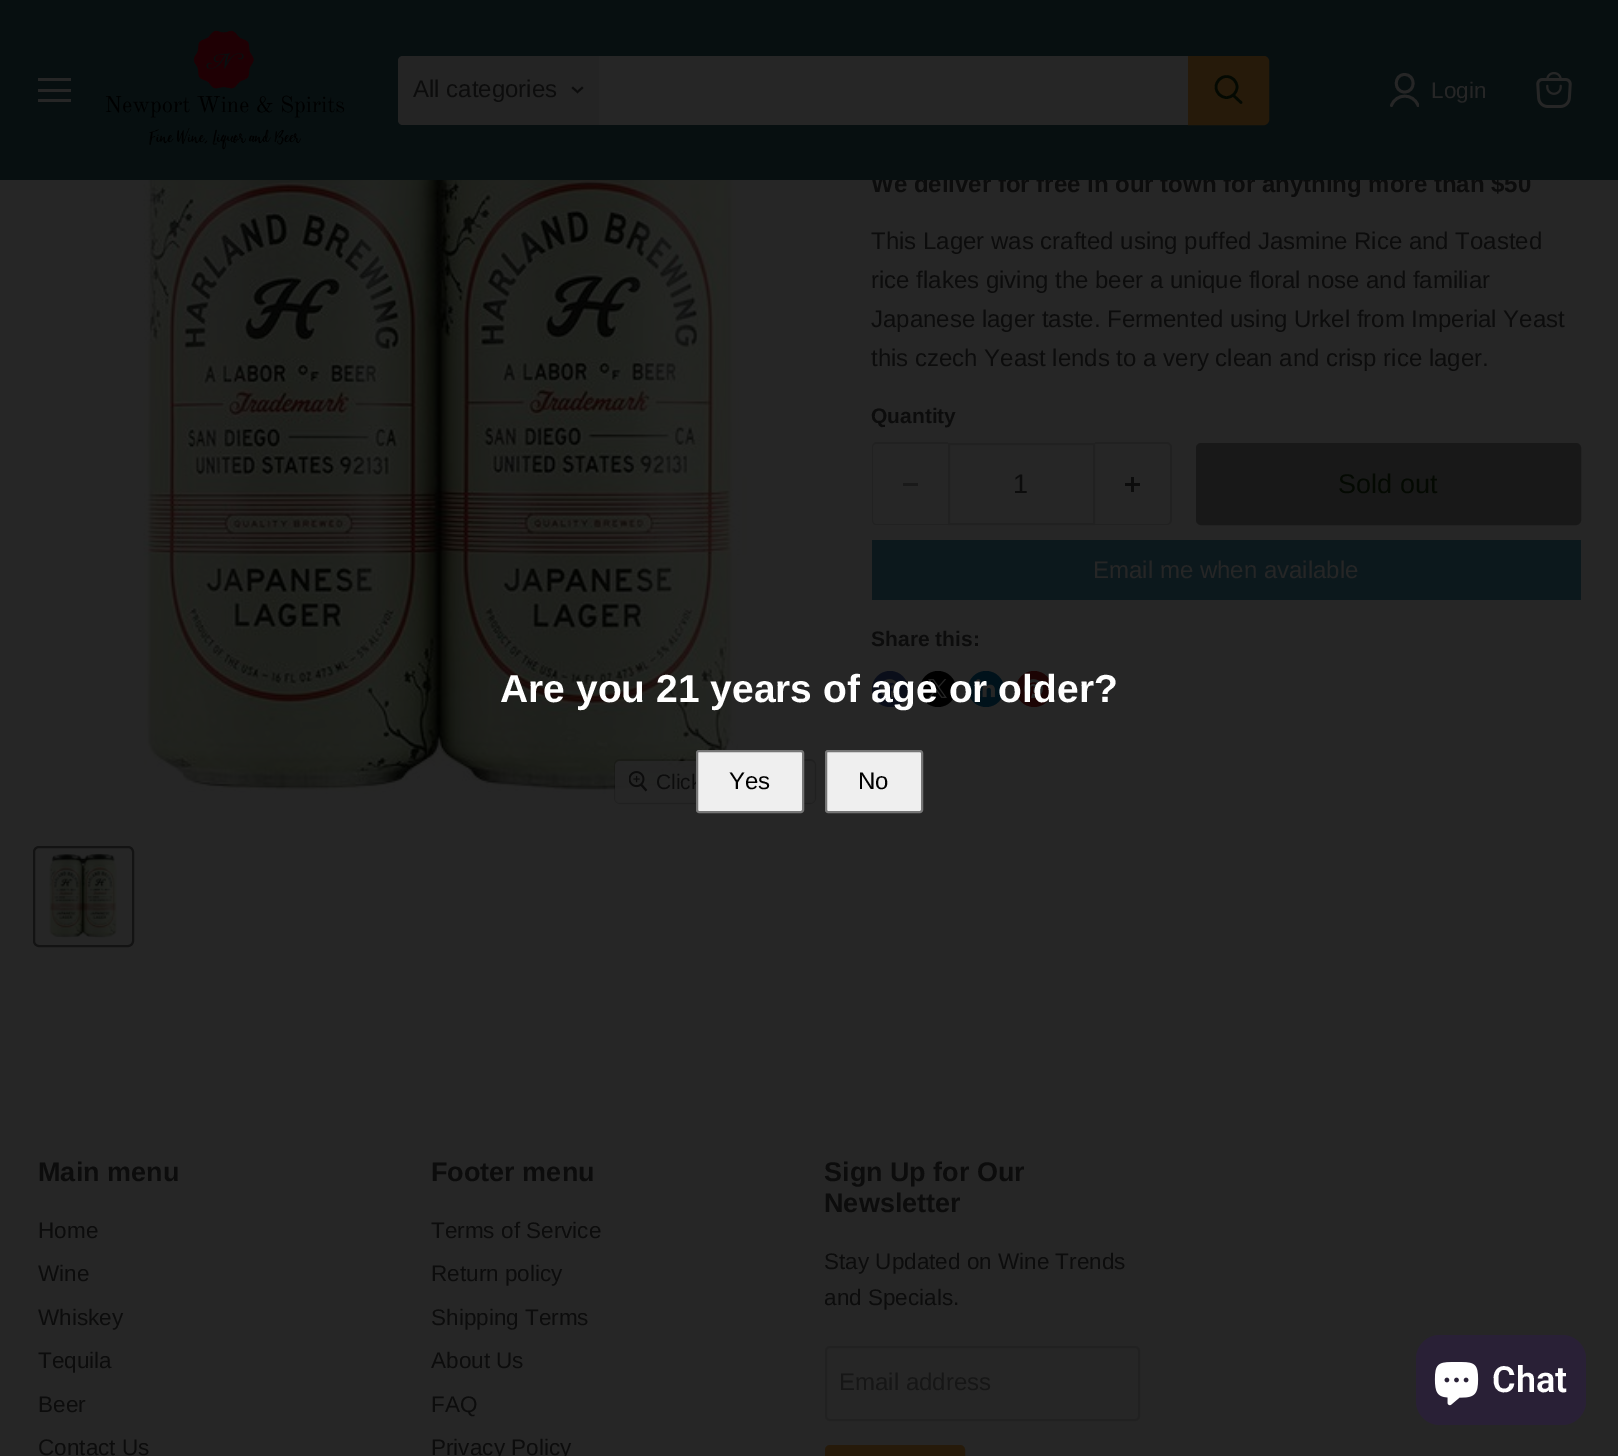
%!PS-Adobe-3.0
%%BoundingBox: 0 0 1618 1456
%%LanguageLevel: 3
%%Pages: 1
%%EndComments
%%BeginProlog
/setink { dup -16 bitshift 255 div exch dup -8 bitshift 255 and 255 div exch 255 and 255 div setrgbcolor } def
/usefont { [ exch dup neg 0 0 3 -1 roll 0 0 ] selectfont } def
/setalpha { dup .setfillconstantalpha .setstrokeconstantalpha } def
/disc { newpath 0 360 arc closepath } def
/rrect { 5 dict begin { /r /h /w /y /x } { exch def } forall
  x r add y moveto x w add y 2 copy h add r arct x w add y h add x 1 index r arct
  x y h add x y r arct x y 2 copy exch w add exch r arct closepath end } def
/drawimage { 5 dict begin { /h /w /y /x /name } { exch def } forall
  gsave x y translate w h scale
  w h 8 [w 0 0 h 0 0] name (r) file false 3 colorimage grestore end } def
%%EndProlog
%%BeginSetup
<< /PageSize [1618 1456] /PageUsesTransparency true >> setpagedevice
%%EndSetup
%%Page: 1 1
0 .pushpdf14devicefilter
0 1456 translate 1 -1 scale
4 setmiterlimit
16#262626 setink
0 0 1618 1456 rectfill
/LiberationSans-Bold 24 usefont
16#0C0C0C setink
871 192 moveto (We deliver for free in our town for anything more than $50) show
[
    [0 0 1618 180 16#070F10]
    [38 78 33 3 16#262626]
    [38 89 33 3 16#262626]
    [38 99 33 3 16#262626]
] { aload pop setink rectfill } forall
(img1.raw) 105 30 240 120 drawimage
16#242424 setink
403 56 moveto 599 56 lineto 599 125 lineto 403 125 lineto 400 125 398 123 398 120 curveto 398 61 lineto 398 58 400 56 403 56 curveto closepath fill
/LiberationSans-Regular 24 usefont
16#0C0C0C setink
413 97 moveto (All categories) show
1.9 setlinewidth
2 setlinecap
577.5 92 moveto 582 88 lineto 577.5 92 moveto 573 88 lineto stroke
16#262626 setink
599 56 589 69 rectfill
16#261A0A setink
1189 57 moveto 1264 57 lineto 1266 57 1268 59 1268 61 curveto 1268 120 lineto 1268 122 1266 124 1264 124 curveto 1189 124 lineto closepath gsave fill grestore
2 setlinewidth
0 setlinecap
stroke
16#040902 setink
2.6 setlinewidth
1 setlinecap
1241 102.5 moveto 1233.5 95.5 lineto stroke
0 setlinecap
1226.5 87 10.5 disc stroke
16#262626 setink
2.8 setlinewidth
1 setlinecap
1 setlinejoin
1404.5 92 moveto 1416 92 1416 74.5 1404.5 74.5 curveto 1393.5 74.5 1393.5 92 1404.5 92 curveto closepath stroke
gsave
1389 72 30 36 rectclip
1418 105.5 moveto 1413.5 93 1396 93 1391.5 105.5 curveto stroke
grestore
/LiberationSans-Regular 22.5 usefont
1431 98 moveto (Login) show
(img2.raw) 1536 72 36 36 drawimage
/LiberationSans-Regular 24 usefont
16#0C0C0C setink
[
    [(This Lager was crafted using puffed Jasmine Rice and Toasted) 871 249]
    [(rice flakes giving the beer a unique floral nose and familiar) 871 288]
    [(Japanese lager taste. Fermented using Urkel from Imperial Yeast) 871 327]
    [(this czech Yeast lends to a very clean and crisp rice lager.) 871 366]
] { aload pop moveto show } forall
/LiberationSans-Bold 21 usefont
871 423 moveto (Quantity) show
16#212121 setink
876 442 moveto 948 442 lineto 948 525 lineto 876 525 lineto 874 525 872 523 872 520 curveto 872 447 lineto 872 445 874 442 876 442 curveto closepath 876 444 moveto 948 444 lineto 948 524 lineto 876 524 lineto 874 524 873 522 873 520 curveto 873 447 lineto 873 445 874 444 876 444 curveto closepath eofill
16#191919 setink
903 483 15 3 rectfill
16#212121 setink
2 setlinewidth
0 setlinecap
0 setlinejoin
949 444 145 80 rectstroke
/LiberationSans-Regular 27 usefont
16#0C0C0C setink
1013 493 moveto (1) show
16#212121 setink
1095 442 moveto 1167 442 lineto 1169 442 1172 445 1172 447 curveto 1172 520 lineto 1172 523 1169 525 1167 525 curveto 1095 525 lineto closepath 1095 444 moveto 1167 444 lineto 1169 444 1170 445 1170 447 curveto 1170 520 lineto 1170 522 1169 524 1167 524 curveto 1095 524 lineto closepath eofill
(img3.raw) 1125 477 15 15 drawimage
16#181818 setink
1197 444 383 80 4 rrect gsave fill grestore
stroke
16#040902 setink
1338 493 moveto (Sold out) show
16#0C181C setink
872 540 709 60 rectfill
/LiberationSans-Regular 24 usefont
16#262626 setink
1093 578 moveto (Email me when available) show
/LiberationSans-Bold 21 usefont
16#0C0C0C setink
871 646 moveto (Share this:) show
16#0A0E1A setink
890 689 18 disc fill
(img4.raw) 880 679 19 19 drawimage
16#000000 setink
938 689 18 disc fill
(img5.raw) 928 679 19 19 drawimage
16#00121B setink
986 689 18 disc fill
(img6.raw) 976 679 19 19 drawimage
16#1C0404 setink
1034 689 18 disc fill
(img7.raw) 1024 679 19 19 drawimage
(img8.raw) 143 180 604 614 drawimage
0.15 setalpha
16#000000 setink
615 760 200 43 5 rrect stroke
0.9 setalpha
16#262626 setink
615 761 200 42 5 rrect fill
1 setalpha
(img9.raw) 629 771 19 21 drawimage
/LiberationSans-Regular 21 usefont
16#0C0C0C setink
656 789 moveto (Click) show
16#131313 setink
34 847 99 99 5 rrect stroke
(img10.raw) 49 851 70 87 drawimage
/LiberationSans-Bold 39 usefont
16#FFFFFF setink
500 702 moveto (Are you 21 years of age or older?) show
16#EFEFEF setink
697 751 106 61 2 rrect gsave fill grestore
16#767676 setink
stroke
/LiberationSans-Regular 24 usefont
16#000000 setink
729 789 moveto (Yes) show
16#EFEFEF setink
826 751 96 61 2 rrect gsave fill grestore
16#767676 setink
stroke
16#000000 setink
858 789 moveto (No) show
/LiberationSans-Bold 27 usefont
16#0C0C0C setink
38 1181 moveto (Main menu) show
/LiberationSans-Regular 22.5 usefont
[
    [(Home) 38 1238]
    [(Wine) 38 1281]
    [(Whiskey) 38 1325]
    [(Tequila) 38 1368]
    [(Beer) 38 1412]
    [(Contact Us) 38 1455]
] { aload pop moveto show } forall
/LiberationSans-Bold 27 usefont
431 1181 moveto (Footer menu) show
/LiberationSans-Regular 22.5 usefont
[
    [(Terms of Service) 431 1238]
    [(Return policy) 431 1281]
    [(Shipping Terms) 431 1325]
    [(About Us) 431 1368]
    [(FAQ) 431 1412]
    [(Privacy Policy) 431 1455]
] { aload pop moveto show } forall
/LiberationSans-Bold 27 usefont
824 1181 moveto (Sign Up for Our) show
824 1212 moveto (Newsletter) show
/LiberationSans-Regular 22.5 usefont
824 1269 moveto (Stay Updated on Wine Trends) show
824 1305 moveto (and Specials.) show
16#212121 setink
826 1347 313 73 4 rrect stroke
/LiberationSans-Regular 24 usefont
16#161616 setink
839 1390 moveto (Email address) show
16#261A0A setink
826 1446 138 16 4 rrect gsave fill grestore
stroke
16#292036 setink
1416 1335 170 90 24 rrect fill
(img11.raw) 1434 1362 45 44 drawimage
/Roboto-SemiBold 36 usefont
16#FFFFFF setink
1492 1392 moveto (Chat) show
.poppdf14devicefilter showpage
%%EOF
